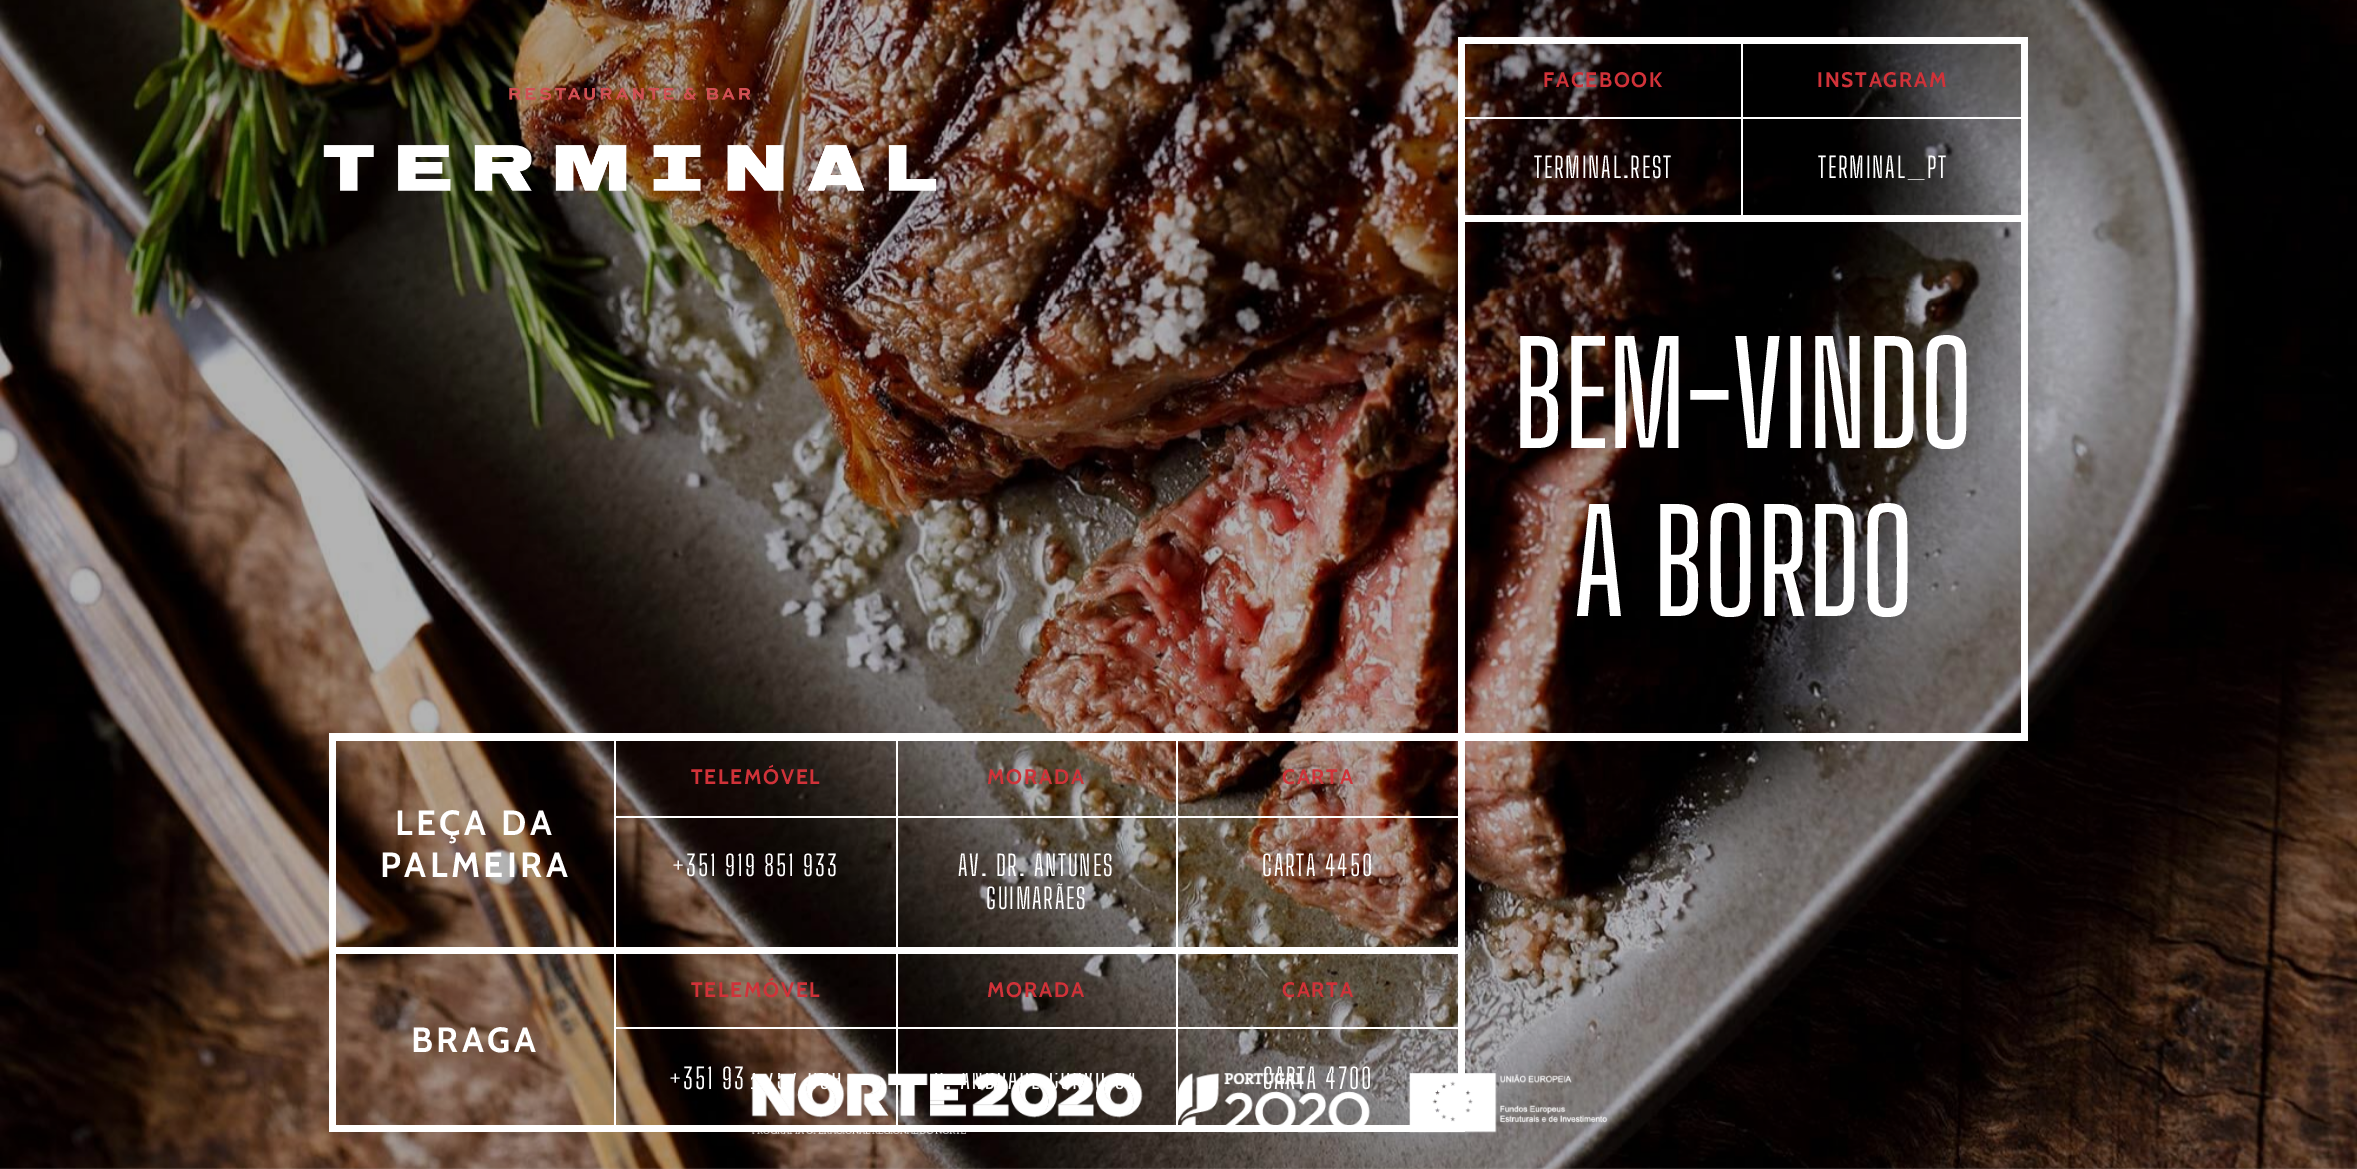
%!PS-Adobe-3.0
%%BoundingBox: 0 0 2357 1169
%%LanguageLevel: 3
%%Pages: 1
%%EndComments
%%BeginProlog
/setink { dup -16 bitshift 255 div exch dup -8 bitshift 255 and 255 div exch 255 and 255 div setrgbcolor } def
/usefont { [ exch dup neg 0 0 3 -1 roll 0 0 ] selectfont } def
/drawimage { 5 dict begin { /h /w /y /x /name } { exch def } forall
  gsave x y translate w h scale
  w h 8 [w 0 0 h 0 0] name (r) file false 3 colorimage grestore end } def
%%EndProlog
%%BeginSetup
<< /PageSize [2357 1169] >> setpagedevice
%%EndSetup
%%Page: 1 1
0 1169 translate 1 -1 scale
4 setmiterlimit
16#FFFFFF setink
0 0 2357 1169 rectfill
(img1.raw) 0 0 2357 1169 drawimage
[
    [1458 37 3 700 16#FFFFFF]
    [1461 37 567 7 16#FFFFFF]
    [2021 37 7 178 16#FFFFFF]
    [1461 37 4 178 16#FFFFFF]
    [1741 44 2 171 16#FFFFFF]
    [1465 117 556 2 16#FFFFFF]
] { aload pop setink rectfill } forall
/Cabin-Bold 21 usefont
16#D13239 setink
1543 87 moveto 1.75 0 (FACEBOOK) ashow
1817 87 moveto 1.75 0 (INSTAGRAM) ashow
/BigShouldersDisplay-Regular 28 usefont
16#FFFFFF setink
1534 178 moveto 1.75 0 (TERMINAL.REST) ashow
1818 178 moveto 1.75 0 (TERMINAL_PT) ashow
[
    [1461 215 567 7 16#FFFFFF]
    [2021 215 7 522 16#FFFFFF]
    [1461 733 567 8 16#FFFFFF]
    [1461 215 4 522 16#FFFFFF]
] { aload pop setink rectfill } forall
/BigShouldersDisplay-Medium 140 usefont
1513 448 moveto (BEM-VINDO) show
1574 616 moveto (A BORDO) show
[
    [329 733 1132 8 16#FFFFFF]
    [1458 737 7 213 16#FFFFFF]
    [329 947 1132 7 16#FFFFFF]
    [329 737 7 213 16#FFFFFF]
    [614 740 2 207 16#FFFFFF]
] { aload pop setink rectfill } forall
/Cabin-Bold 35 usefont
395 835 moveto 3.5 0 (LEÇA DA) ashow
380 877 moveto 3.5 0 (PALMEIRA) ashow
896 740 2 77 rectfill
616 816 282 2 rectfill
/Cabin-Bold 21 usefont
16#D13239 setink
691 784 moveto 1.75 0 (TELEMÓVEL) ashow
16#FFFFFF setink
1176 740 2 77 rectfill
898 816 560 2 rectfill
16#D13239 setink
987 784 moveto 1.75 0 (MORADA) ashow
1282 784 moveto 1.75 0 (CARTA) ashow
16#FFFFFF setink
896 817 2 130 rectfill
/BigShouldersDisplay-Regular 28 usefont
672 876 moveto 1.75 0 (+351 919 851 933) ashow
1176 817 2 130 rectfill
958 876 moveto 1.75 0 (AV. DR. ANTUNES) ashow
986 909 moveto 1.75 0 (GUIMARÃES) ashow
1262 876 moveto 1.75 0 (CARTA 4450) ashow
[
    [1458 950 3 170 16#FFFFFF]
    [329 1125 1132 7 16#FFFFFF]
    [329 950 7 182 16#FFFFFF]
    [614 954 2 171 16#FFFFFF]
] { aload pop setink rectfill } forall
/Cabin-Bold 35 usefont
411 1052 moveto 3.5 0 (BRAGA) ashow
896 954 2 171 rectfill
616 1027 282 2 rectfill
/Cabin-Bold 21 usefont
16#D13239 setink
691 997 moveto 1.75 0 (TELEMÓVEL) ashow
16#FFFFFF setink
1176 954 2 171 rectfill
898 1027 560 2 rectfill
16#D13239 setink
987 997 moveto 1.75 0 (MORADA) ashow
1282 997 moveto 1.75 0 (CARTA) ashow
/BigShouldersDisplay-Regular 28 usefont
16#FFFFFF setink
669 1089 moveto 1.75 0 (+351 93) ashow
945 1089 moveto 1.75 0 (.) ashow
1263 1089 moveto 1.75 0 (CARTA 4700) ashow
1461 950 4 182 rectfill
(img2.raw) 323 87 614 104 drawimage
(img3.raw) 751 1073 857 61 drawimage
showpage
%%EOF
